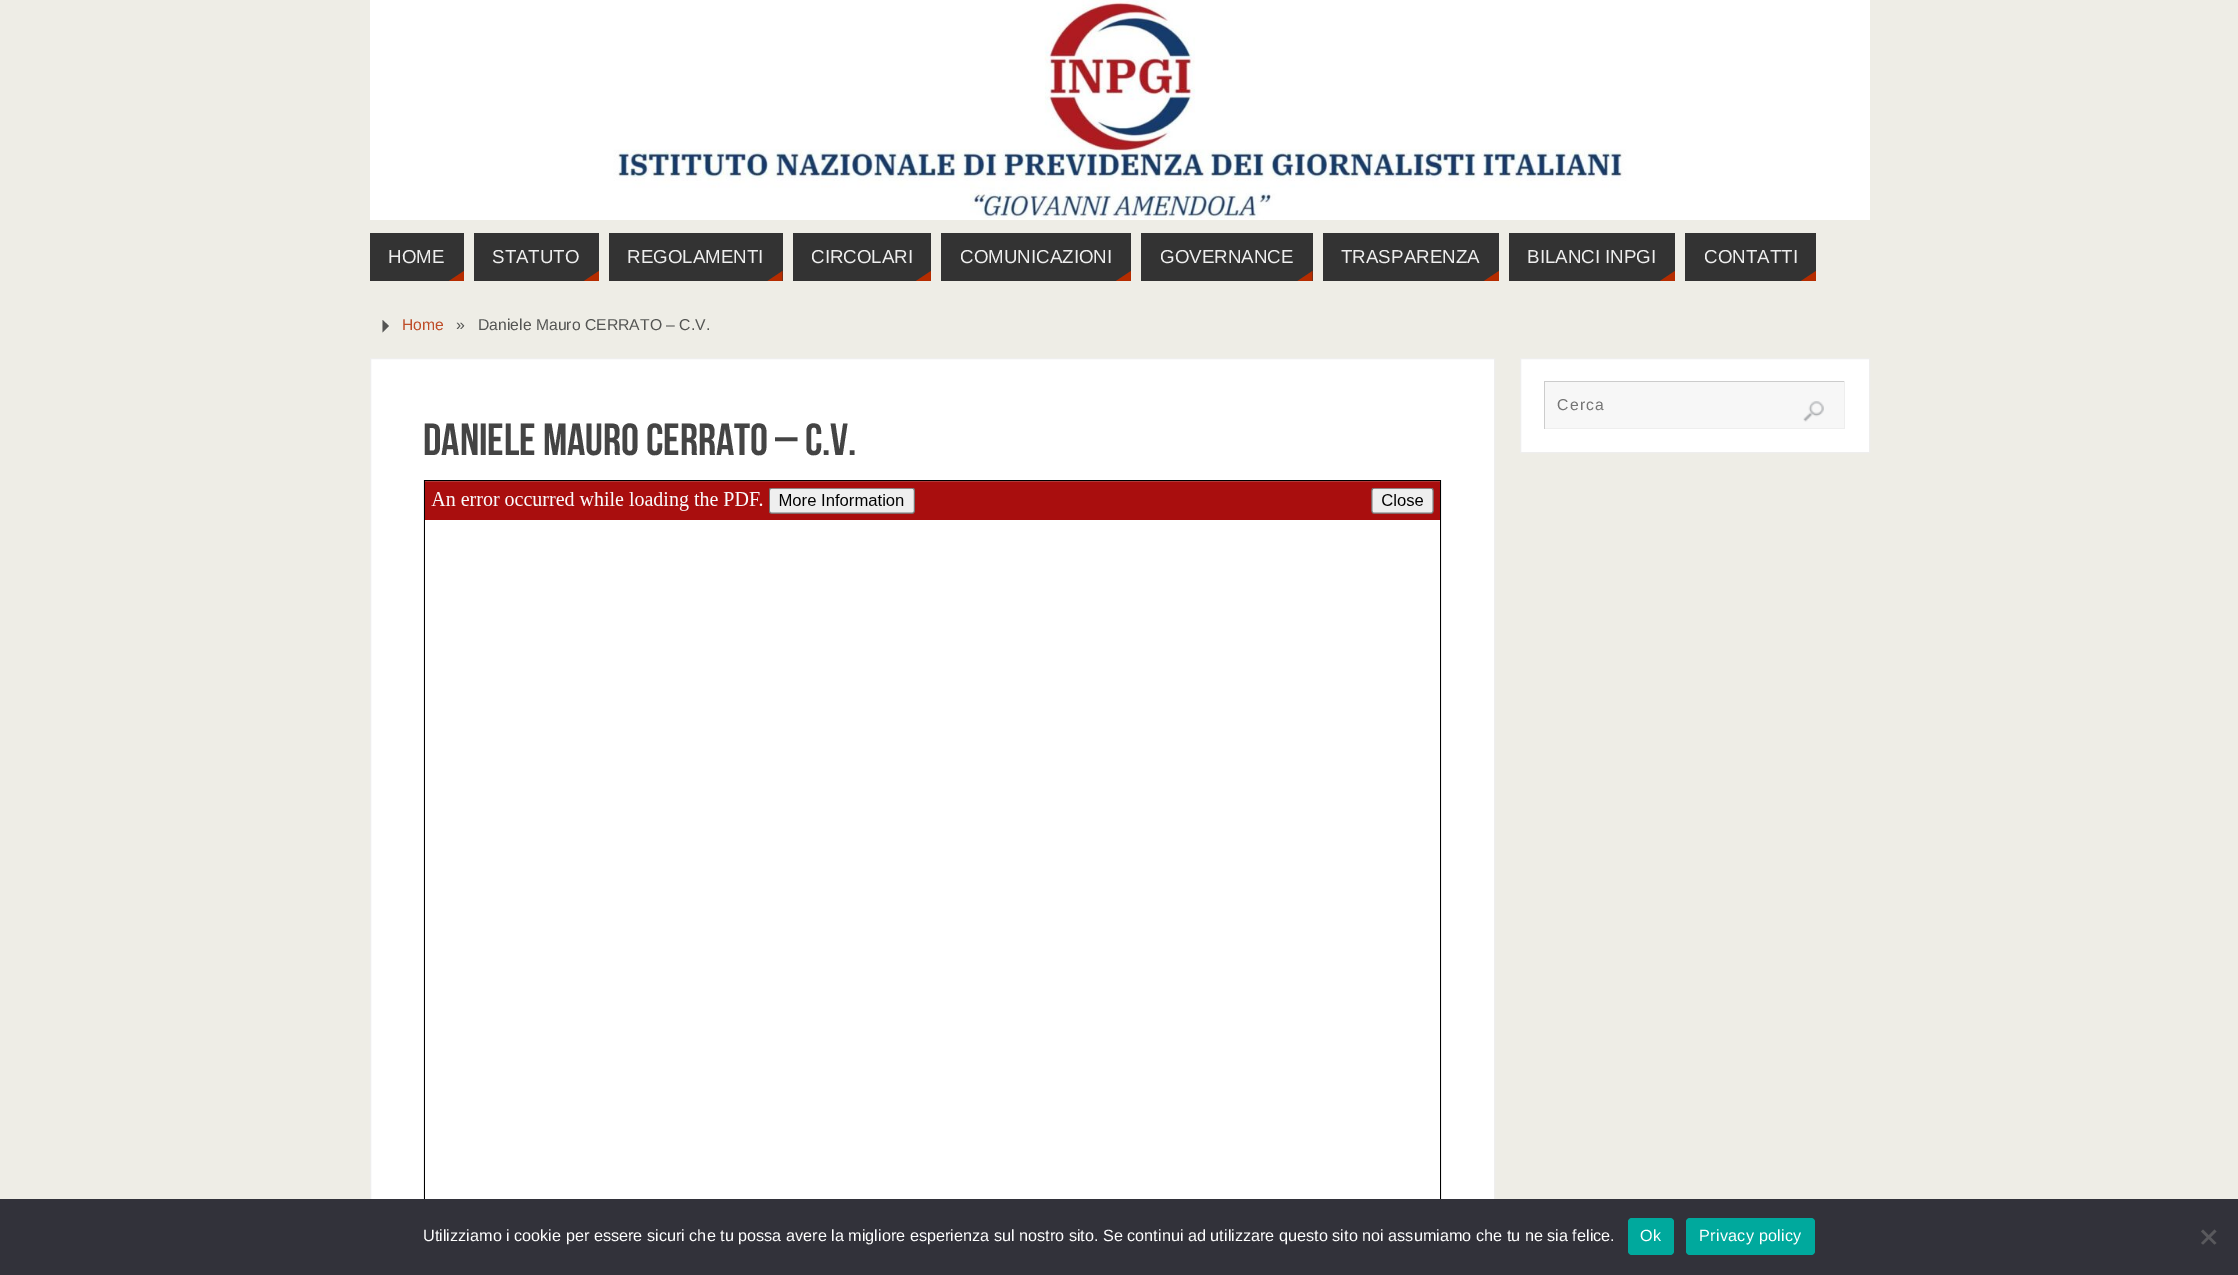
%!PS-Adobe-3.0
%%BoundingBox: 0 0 2238 1275
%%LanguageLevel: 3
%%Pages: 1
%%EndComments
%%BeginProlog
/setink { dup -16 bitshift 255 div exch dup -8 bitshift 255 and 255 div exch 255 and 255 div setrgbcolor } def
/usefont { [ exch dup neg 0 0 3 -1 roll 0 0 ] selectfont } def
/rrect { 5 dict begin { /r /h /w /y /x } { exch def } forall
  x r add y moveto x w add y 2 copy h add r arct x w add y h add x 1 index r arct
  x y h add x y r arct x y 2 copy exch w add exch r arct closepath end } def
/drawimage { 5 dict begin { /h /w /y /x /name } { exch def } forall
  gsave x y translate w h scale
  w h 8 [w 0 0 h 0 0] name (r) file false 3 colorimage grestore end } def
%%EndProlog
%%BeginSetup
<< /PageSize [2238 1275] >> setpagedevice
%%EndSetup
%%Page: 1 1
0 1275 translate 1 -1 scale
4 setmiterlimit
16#EEEDE6 setink
0 0 2238 1275 rectfill
(img1.raw) 370 0 1500 220 drawimage
16#333333 setink
370 233 94 48 rectfill
/LiberationSans-Regular 18.75 usefont
16#EEEEEE setink
388 263 moveto (HOME) show
16#B52C00 setink
464 281 moveto 449 281 lineto 464 271 lineto closepath fill
16#333333 setink
474 233 125 48 rectfill
16#EEEEEE setink
492 263 moveto (STATUTO) show
16#B52C00 setink
599 281 moveto 584 281 lineto 599 271 lineto closepath fill
16#333333 setink
609 233 174 48 rectfill
16#EEEEEE setink
627 263 moveto (REGOLAMENTI) show
16#B52C00 setink
782.5 281 moveto 767.5 281 lineto 782.5 271 lineto closepath fill
16#333333 setink
793 233 138 48 rectfill
16#EEEEEE setink
811 263 moveto (CIRCOLARI) show
16#B52C00 setink
931 281 moveto 916 281 lineto 931 271 lineto closepath fill
16#333333 setink
941 233 190 48 rectfill
16#EEEEEE setink
960 263 moveto (COMUNICAZIONI) show
16#B52C00 setink
1131 281 moveto 1116 281 lineto 1131 271 lineto closepath fill
16#333333 setink
1141 233 172 48 rectfill
16#EEEEEE setink
1160 263 moveto (GOVERNANCE) show
16#B52C00 setink
1312.5 281 moveto 1297.5 281 lineto 1312.5 271 lineto closepath fill
16#333333 setink
1323 233 176 48 rectfill
16#EEEEEE setink
1341 263 moveto (TRASPARENZA) show
16#B52C00 setink
1499 281 moveto 1484 281 lineto 1499 271 lineto closepath fill
16#333333 setink
1509 233 166 48 rectfill
16#EEEEEE setink
1527 263 moveto (BILANCI INPGI) show
16#B52C00 setink
1675 281 moveto 1660 281 lineto 1675 271 lineto closepath fill
16#333333 setink
1685 233 131 48 rectfill
16#EEEEEE setink
1704 263 moveto (CONTATTI) show
16#B52C00 setink
1816 281 moveto 1801 281 lineto 1816 271 lineto closepath fill
16#545553 setink
382.5 332.5 moveto 382.5 320 lineto 389 326 lineto closepath fill
/LiberationSans-Regular 15.75 usefont
16#BF4D28 setink
402 330 moveto (Home) show
16#545553 setink
456 330 moveto (») show
478 330 moveto (Daniele Mauro CERRATO – C.V.) show
16#FFFFFF setink
1520.5 358.5 moveto 1869.5 358.5 lineto 1869.5 452.5 lineto 1520.5 452.5 lineto closepath gsave fill grestore
16#EEEEEE setink
stroke
[
    [1545 382 299 46 16#F7F7F7]
    [1544 381 301 1 16#CCCCCC]
    [1844 381 1 48 16#EEEEEE]
    [1544 428 301 1 16#EEEEEE]
    [1544 381 1 48 16#CCCCCC]
] { aload pop setink rectfill } forall
16#757575 setink
1557 410 moveto 1.25 0 (Cerca) ashow
(img2.raw) 1803 401 21 21 drawimage
16#FFFFFF setink
371 359 1123 840 rectfill
16#EEEEEE setink
370.5 358.5 1124 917 rectstroke
/BebasNeue-Regular 45 usefont
16#444444 setink
423 455 moveto (Daniele Mauro CERRATO – C.V.) show
(img3.raw) 423 480 1019 719 drawimage
16#32323A setink
0 1199 2238 76 rectfill
/LiberationSans-Regular 16.25 usefont
16#FFFFFF setink
423 1241 moveto (Utilizziamo i cookie per essere sicuri che tu possa avere la migliore esperienza sul nostro sito. Se continui ad utilizzare questo sito noi assumiamo che tu ne sia felice.) show
16#00A99D setink
1628 1218 46 37 4 rrect fill
16#FFFFFF setink
1640 1241 moveto 0.25 0 (Ok) ashow
16#00A99D setink
1686 1218 129 37 4 rrect fill
16#FFFFFF setink
1699 1241 moveto 0.25 0 (Privacy policy) ashow
16#59595D setink
2214.5 1229.5 moveto 2216.5 1231.5 lineto 2203 1244.5 lineto 2201 1243 lineto closepath fill
2201 1231.5 moveto 2203 1229.5 lineto 2216.5 1243 lineto 2214.5 1244.5 lineto closepath fill
showpage
%%EOF
